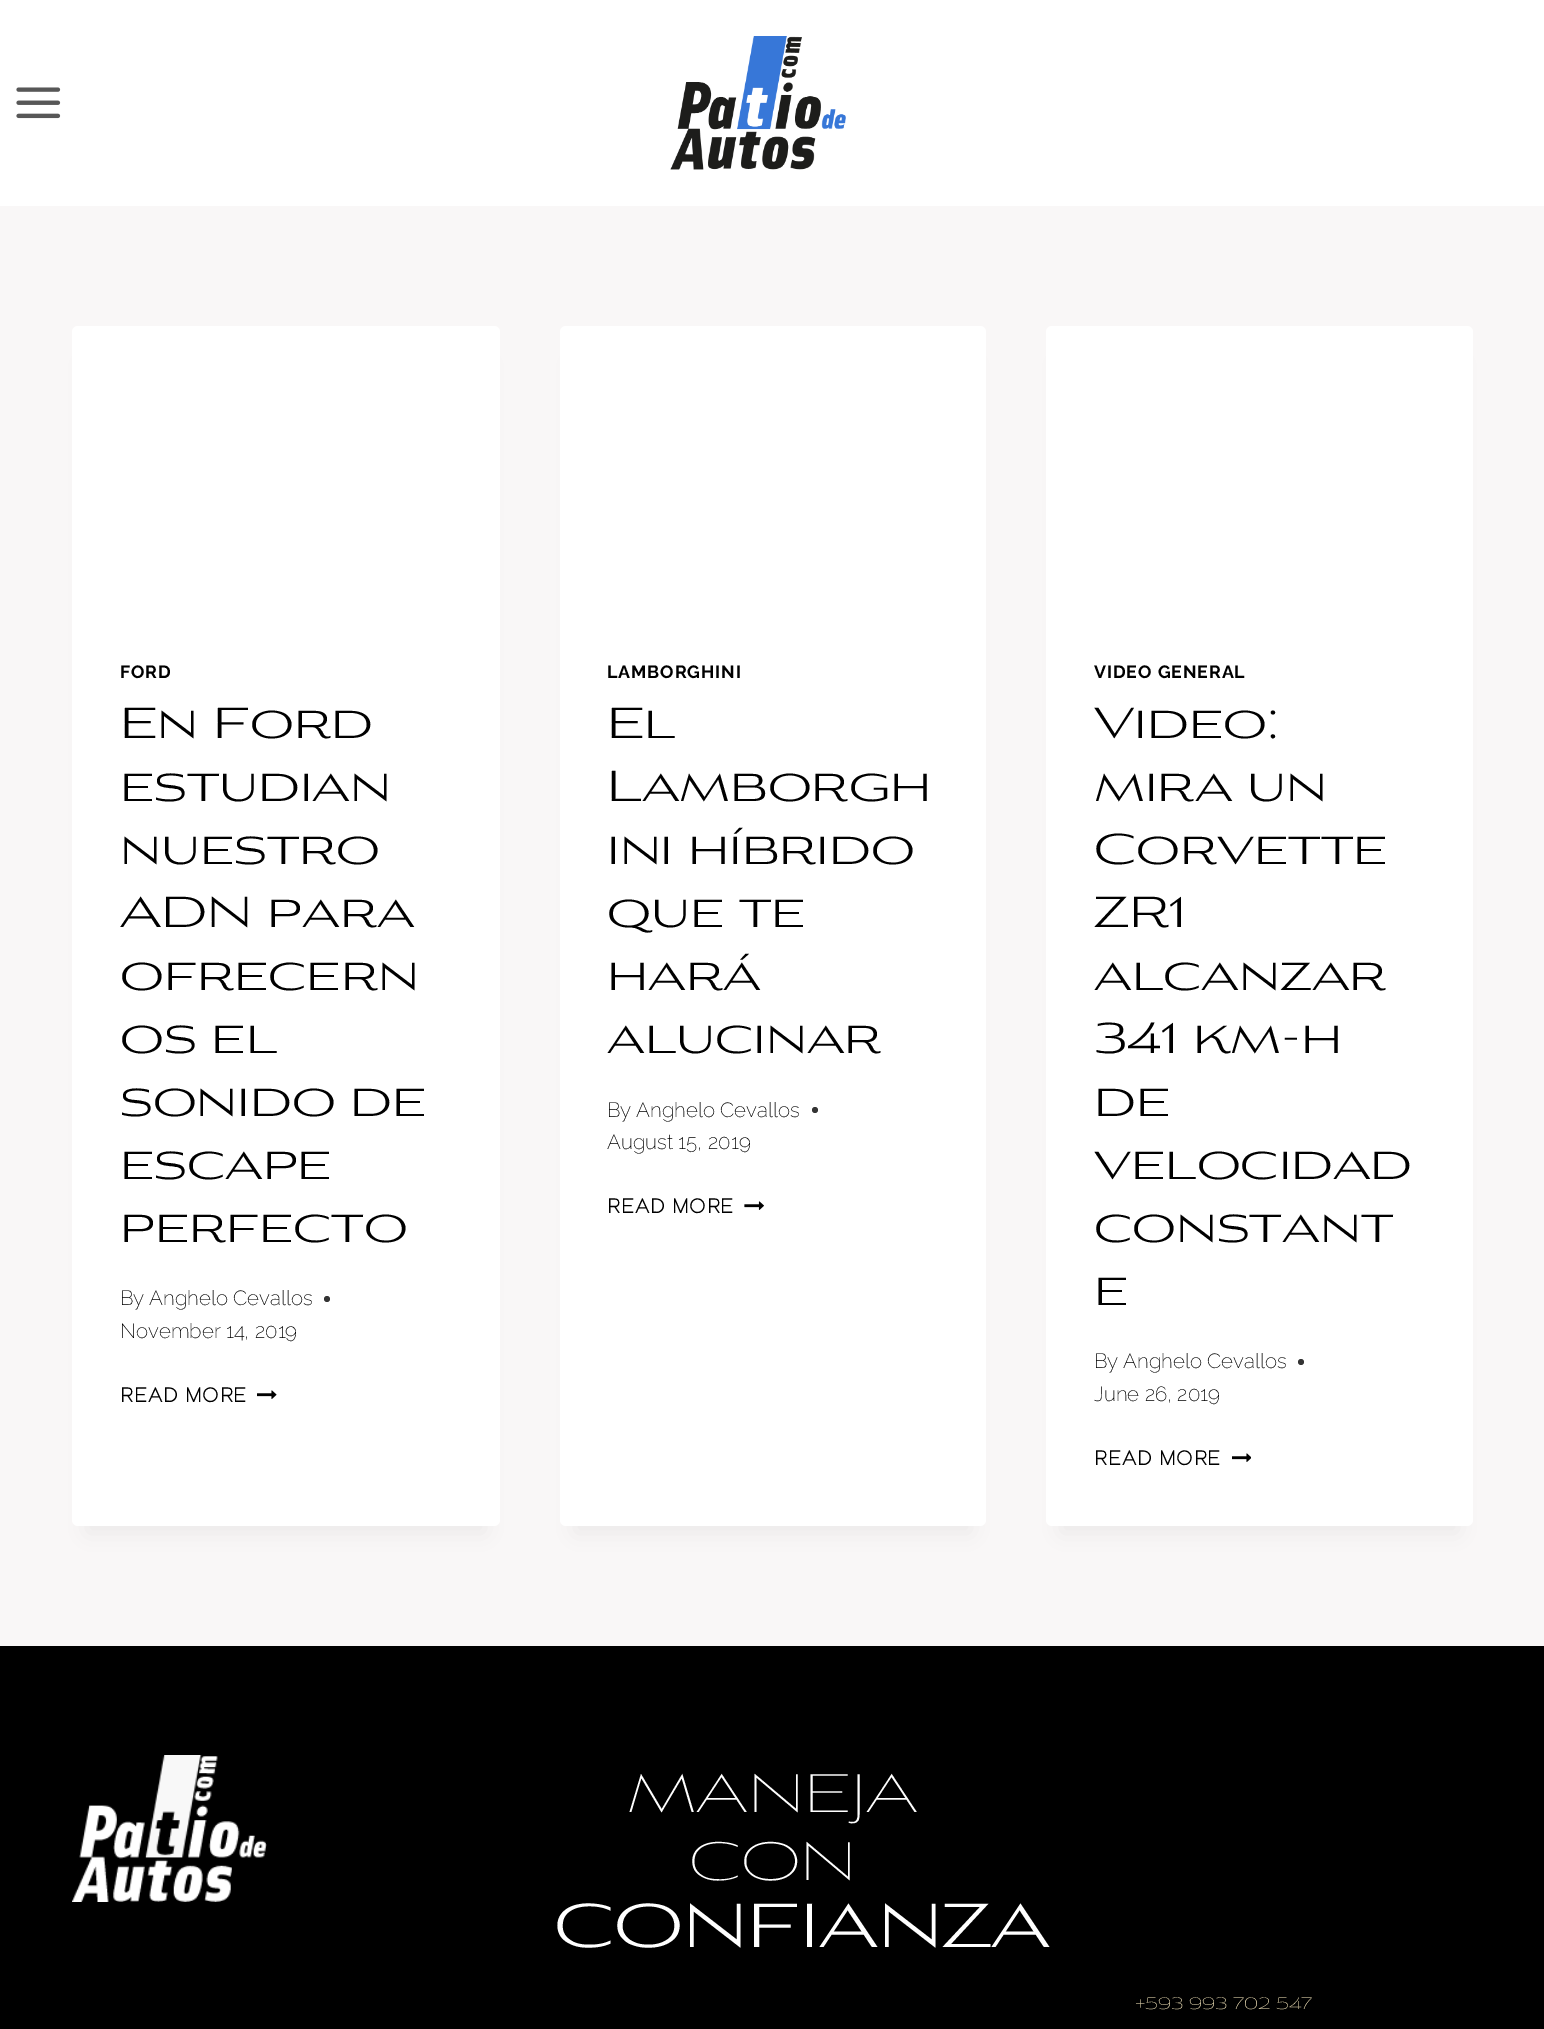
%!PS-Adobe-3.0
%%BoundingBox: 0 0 1544 2029
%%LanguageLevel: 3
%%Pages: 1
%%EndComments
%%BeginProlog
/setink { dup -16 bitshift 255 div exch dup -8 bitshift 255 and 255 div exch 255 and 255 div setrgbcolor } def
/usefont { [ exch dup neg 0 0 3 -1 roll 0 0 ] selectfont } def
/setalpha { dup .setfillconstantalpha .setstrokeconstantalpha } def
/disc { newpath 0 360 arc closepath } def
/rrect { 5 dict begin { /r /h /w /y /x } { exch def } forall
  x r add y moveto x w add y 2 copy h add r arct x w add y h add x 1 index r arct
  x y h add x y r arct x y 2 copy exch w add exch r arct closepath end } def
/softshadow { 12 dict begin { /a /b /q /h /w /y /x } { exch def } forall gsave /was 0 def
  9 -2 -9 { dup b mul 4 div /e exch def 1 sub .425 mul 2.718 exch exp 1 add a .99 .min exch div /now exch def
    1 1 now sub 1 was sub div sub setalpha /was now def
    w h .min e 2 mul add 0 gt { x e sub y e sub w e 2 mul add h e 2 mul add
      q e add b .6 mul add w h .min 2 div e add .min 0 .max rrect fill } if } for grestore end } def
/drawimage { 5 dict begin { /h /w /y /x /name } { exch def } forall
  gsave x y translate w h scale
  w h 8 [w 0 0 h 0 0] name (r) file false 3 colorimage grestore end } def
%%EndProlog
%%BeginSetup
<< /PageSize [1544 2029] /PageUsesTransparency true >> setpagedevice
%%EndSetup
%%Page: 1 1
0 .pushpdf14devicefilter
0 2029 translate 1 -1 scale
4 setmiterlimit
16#F9F7F7 setink
0 0 1544 2029 rectfill
16#FFFFFF setink
0 0 1544 206 rectfill
(img1.raw) 16 87 45 32 drawimage
(img2.raw) 670 36 176 134 drawimage
16#000000 setink
87 363 398 1170 0 11 0.05 softshadow
16#FFFFFF setink
72 326 428 1200 6 rrect fill
/Raleway-Bold 17.75 usefont
16#000000 setink
120 678 moveto 0.9 0 (FORD) ashow
/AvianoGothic-Regular 42 usefont
[
    [(En Ford) 120 738]
    [(estudian) 120 801]
    [(nuestro) 120 864]
    [(ADN para) 120 927]
    [(ofrecern) 120 990]
    [(os el) 120 1053]
    [(sonido de) 120 1116]
    [(escape) 120 1179]
    [(perfecto) 120 1242]
] { aload pop moveto show } forall
/Raleway-ExtraLight 20.5 usefont
120 1305 moveto (By) show
149 1305 moveto (Anghelo Cevallos) show
16#343434 setink
327 1299 3 disc fill
16#000000 setink
120 1338 moveto (November 14, 2019) show
/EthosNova-Bold 20.5 usefont
120 1402 moveto 1 0 (READ MORE) ashow
(img3.raw) 257 1390 20 9 drawimage
575 363 396 1170 0 11 0.05 softshadow
16#FFFFFF setink
560 326 426 1200 6 rrect fill
/Raleway-Bold 17.75 usefont
16#000000 setink
607 678 moveto 0.9 0 (LAMBORGHINI) ashow
/AvianoGothic-Regular 42 usefont
[
    [(El) 607 738]
    [(Lamborgh) 607 801]
    [(ini híbrido) 607 864]
    [(que te) 607 927]
    [(hará) 607 990]
    [(alucinar) 607 1053]
] { aload pop moveto show } forall
/Raleway-ExtraLight 20.5 usefont
607 1117 moveto (By) show
636 1117 moveto (Anghelo Cevallos) show
16#343434 setink
815 1110 3 disc fill
16#000000 setink
607 1149 moveto (August 15, 2019) show
/EthosNova-Bold 20.5 usefont
607 1213 moveto 1 0 (READ MORE) ashow
(img4.raw) 744 1201 20 9 drawimage
1061 363 397 1170 0 11 0.05 softshadow
16#FFFFFF setink
1046 326 427 1200 6 rrect fill
/Raleway-Bold 17.75 usefont
16#000000 setink
1094 678 moveto 0.9 0 (VIDEO GENERAL) ashow
/AvianoGothic-Regular 42 usefont
[
    [(Video:) 1094 738]
    [(mira un) 1094 801]
    [(Corvette) 1094 864]
    [(ZR1) 1094 927]
    [(alcanzar) 1094 990]
    [(341 km-h) 1094 1053]
    [(de) 1094 1116]
    [(velocidad) 1094 1179]
    [(constant) 1094 1242]
    [(e) 1094 1305]
] { aload pop moveto show } forall
/Raleway-ExtraLight 20.5 usefont
1094 1368 moveto (By) show
1123 1368 moveto (Anghelo Cevallos) show
16#343434 setink
1301 1362 3 disc fill
16#000000 setink
1094 1401 moveto (June 26, 2019) show
/EthosNova-Bold 20.5 usefont
1094 1465 moveto 1 0 (READ MORE) ashow
(img5.raw) 1232 1453 19 9 drawimage
0 1646 1544 383 rectfill
(img6.raw) 72 1755 195 147 drawimage
/AvianoGothic-Thin 52.5 usefont
16#FFFFFF setink
627 1812 moveto (MANEJA) show
689 1880 moveto (CON) show
/AvianoGothic-Regular 60 usefont
554 1947 moveto (CONFIANZA) show
/AvianoGothic-Thin 16 usefont
16#F6E7BC setink
1135 2009 moveto (+593 993 702 547) show
.poppdf14devicefilter showpage
%%EOF
